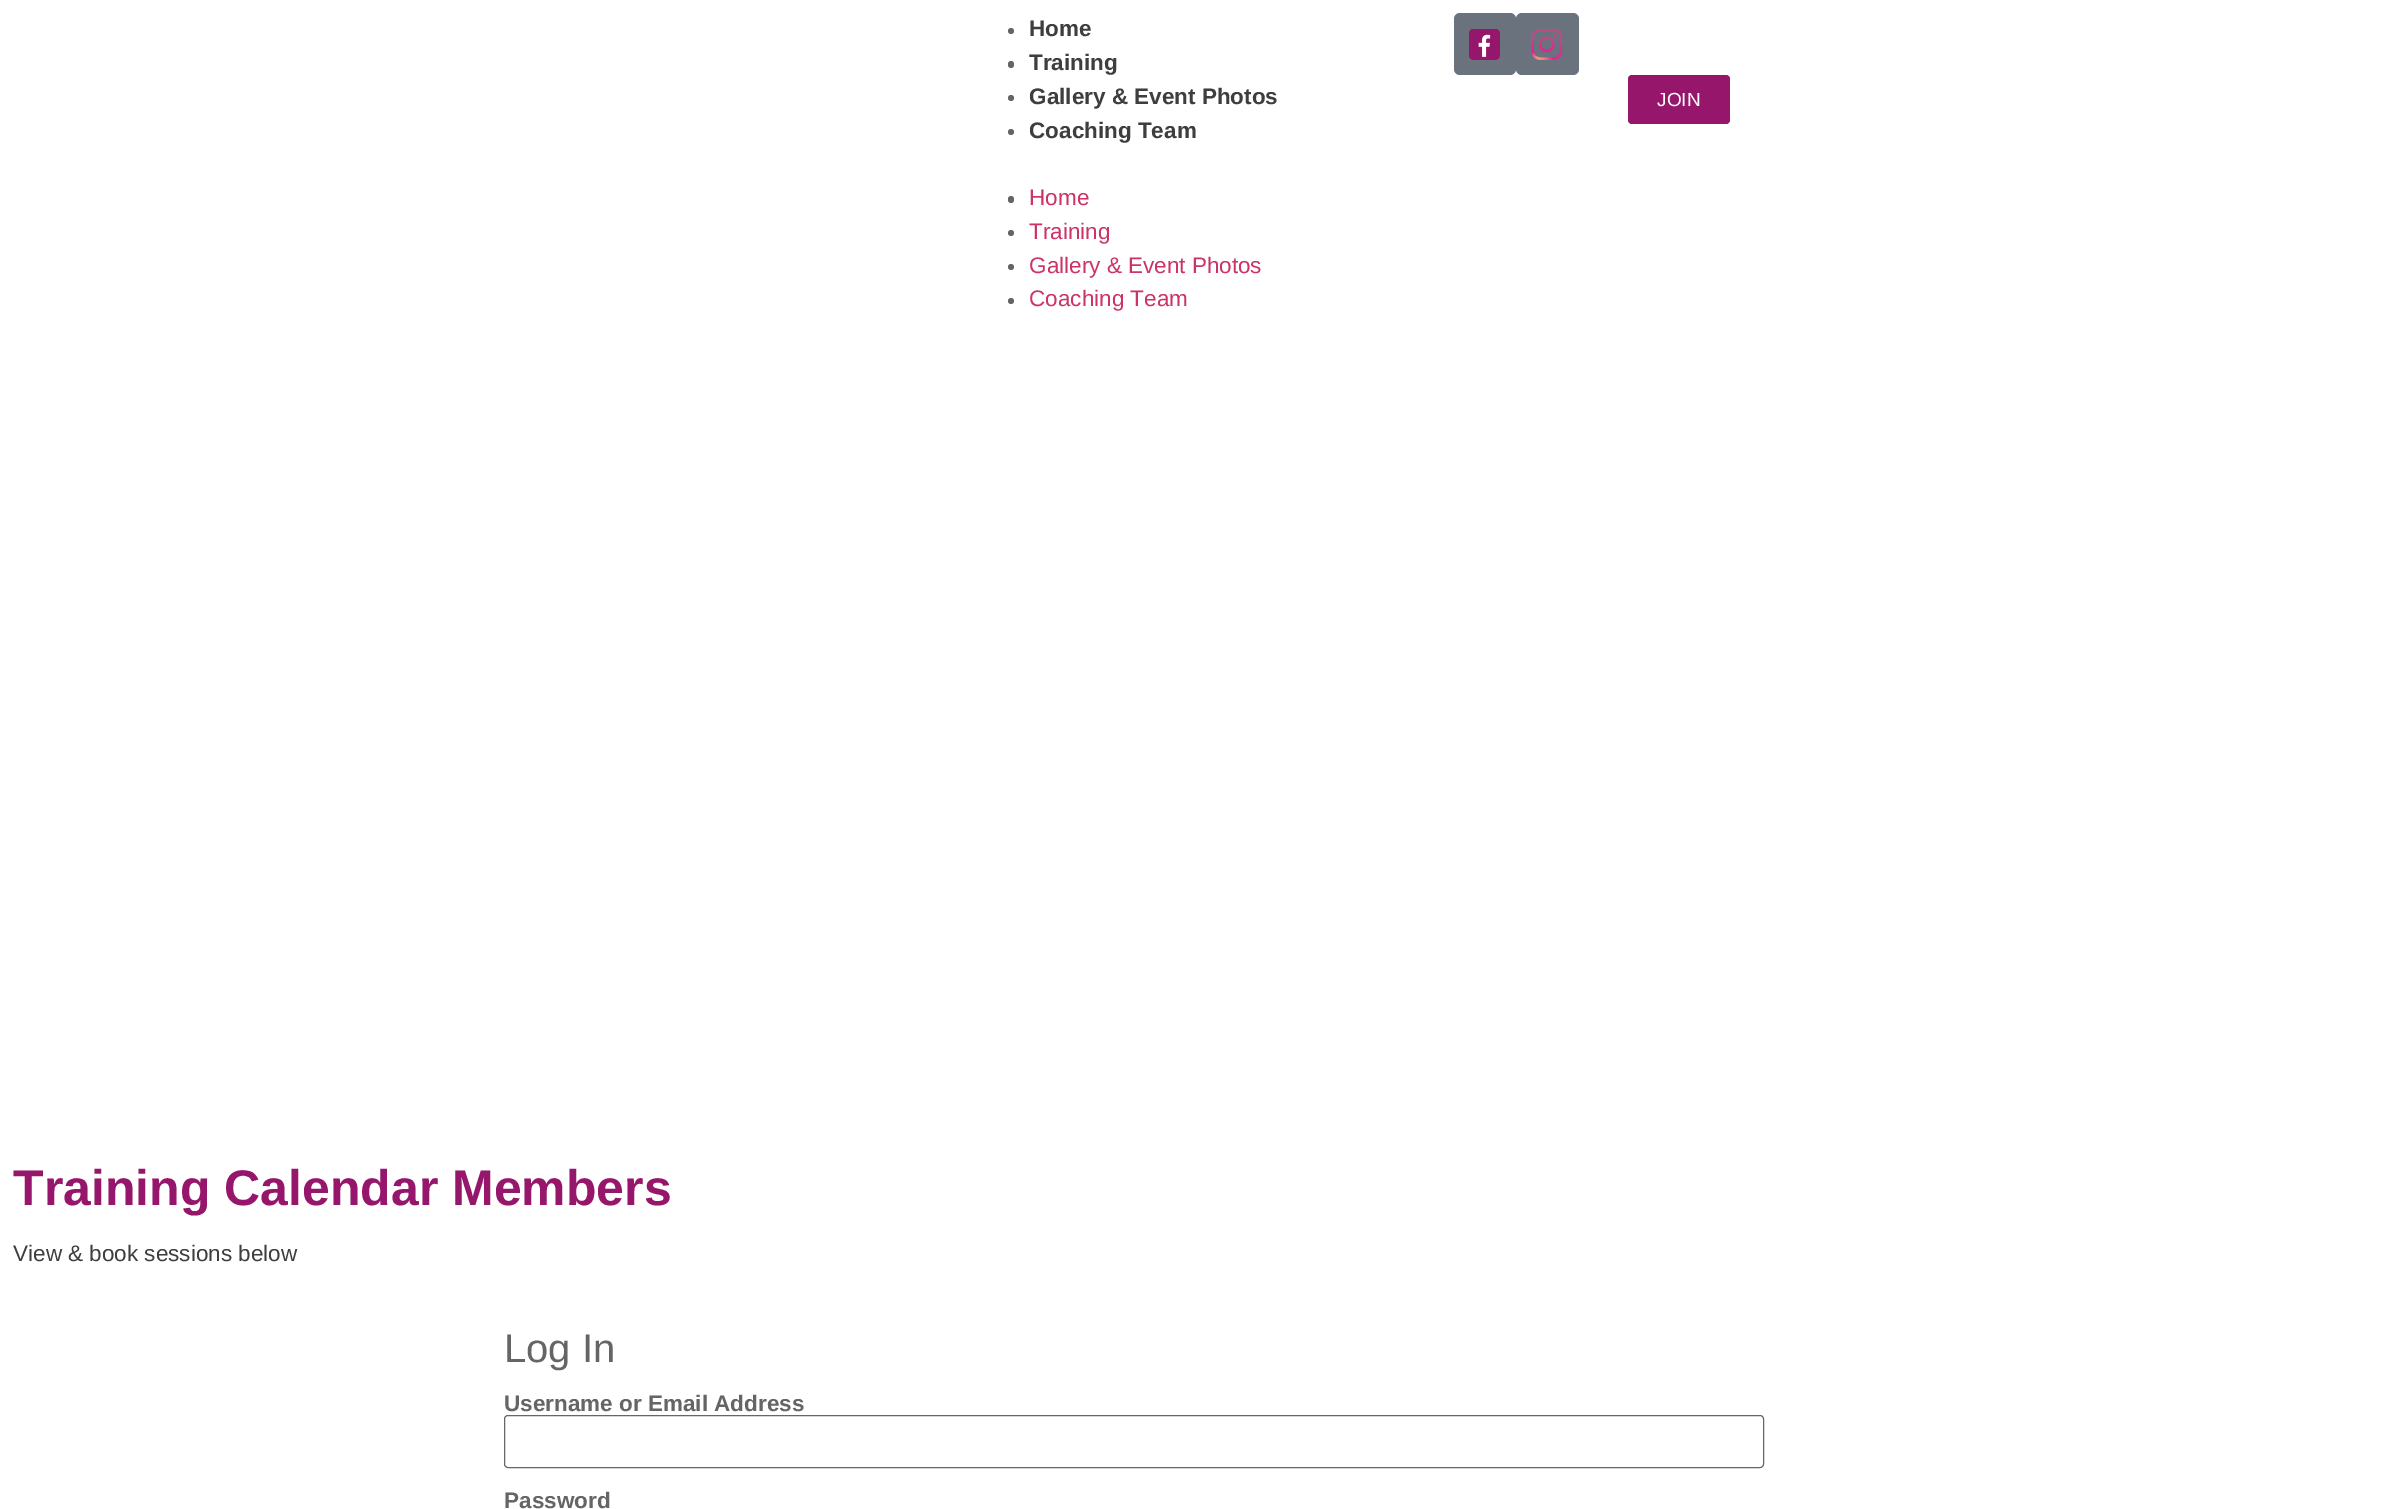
%!PS-Adobe-3.0
%%BoundingBox: 0 0 2407 1509
%%LanguageLevel: 3
%%Pages: 1
%%EndComments
%%BeginProlog
/setink { dup -16 bitshift 255 div exch dup -8 bitshift 255 and 255 div exch 255 and 255 div setrgbcolor } def
/usefont { [ exch dup neg 0 0 3 -1 roll 0 0 ] selectfont } def
/disc { newpath 0 360 arc closepath } def
/rrect { 5 dict begin { /r /h /w /y /x } { exch def } forall
  x r add y moveto x w add y 2 copy h add r arct x w add y h add x 1 index r arct
  x y h add x y r arct x y 2 copy exch w add exch r arct closepath end } def
/drawimage { 5 dict begin { /h /w /y /x /name } { exch def } forall
  gsave x y translate w h scale
  w h 8 [w 0 0 h 0 0] name (r) file false 3 colorimage grestore end } def
%%EndProlog
%%BeginSetup
<< /PageSize [2407 1509] >> setpagedevice
%%EndSetup
%%Page: 1 1
0 1509 translate 1 -1 scale
4 setmiterlimit
16#FFFFFF setink
0 0 2407 1509 rectfill
16#656565 setink
1011 31 3 disc fill
/LiberationSans-Bold 22.5 usefont
16#3E3E3E setink
1029 36 moveto (Home) show
16#656565 setink
1008 61 6 7 3 rrect fill
16#3E3E3E setink
1029 70 moveto (Training) show
16#656565 setink
1011 98 3 disc fill
16#3E3E3E setink
1029 104 moveto (Gallery & Event Photos) show
16#656565 setink
1011 132 3 disc fill
16#3E3E3E setink
1029 138 moveto (Coaching Team) show
16#656565 setink
1008 196 6 7 3 rrect fill
/LiberationSans-Regular 22.5 usefont
16#CC3366 setink
1029 205 moveto (Home) show
16#656565 setink
1011 233 3 disc fill
16#CC3366 setink
1029 239 moveto (Training) show
16#656565 setink
1011 267 3 disc fill
16#CC3366 setink
1029 273 moveto (Gallery & Event Photos) show
16#656565 setink
1011 301 3 disc fill
16#CC3366 setink
1029 306 moveto (Coaching Team) show
16#69727D setink
1454 13 62 62 6 rrect fill
(img1.raw) 1469 29 31 31 drawimage
1516 13 63 62 6 rrect fill
(img2.raw) 1531 29 32 31 drawimage
16#96166B setink
1628 75 102 49 4 rrect fill
/LiberationSans-Regular 19 usefont
16#FFFFFF setink
1657 106 moveto (JOIN) show
/LiberationSans-Bold 50 usefont
16#96166B setink
13 1205 moveto (Training Calendar Members) show
/LiberationSans-Regular 22.5 usefont
16#3E3E3E setink
13 1261 moveto (View & book sessions below) show
/LiberationSans-Regular 40 usefont
16#656565 setink
504 1362 moveto (Log In) show
/LiberationSans-Bold 22.5 usefont
504 1411 moveto (Username or Email Address) show
16#666666 setink
504.5 1415.5 1259 52 3.5 rrect stroke
16#656565 setink
504 1508 moveto (Password) show
showpage
%%EOF
